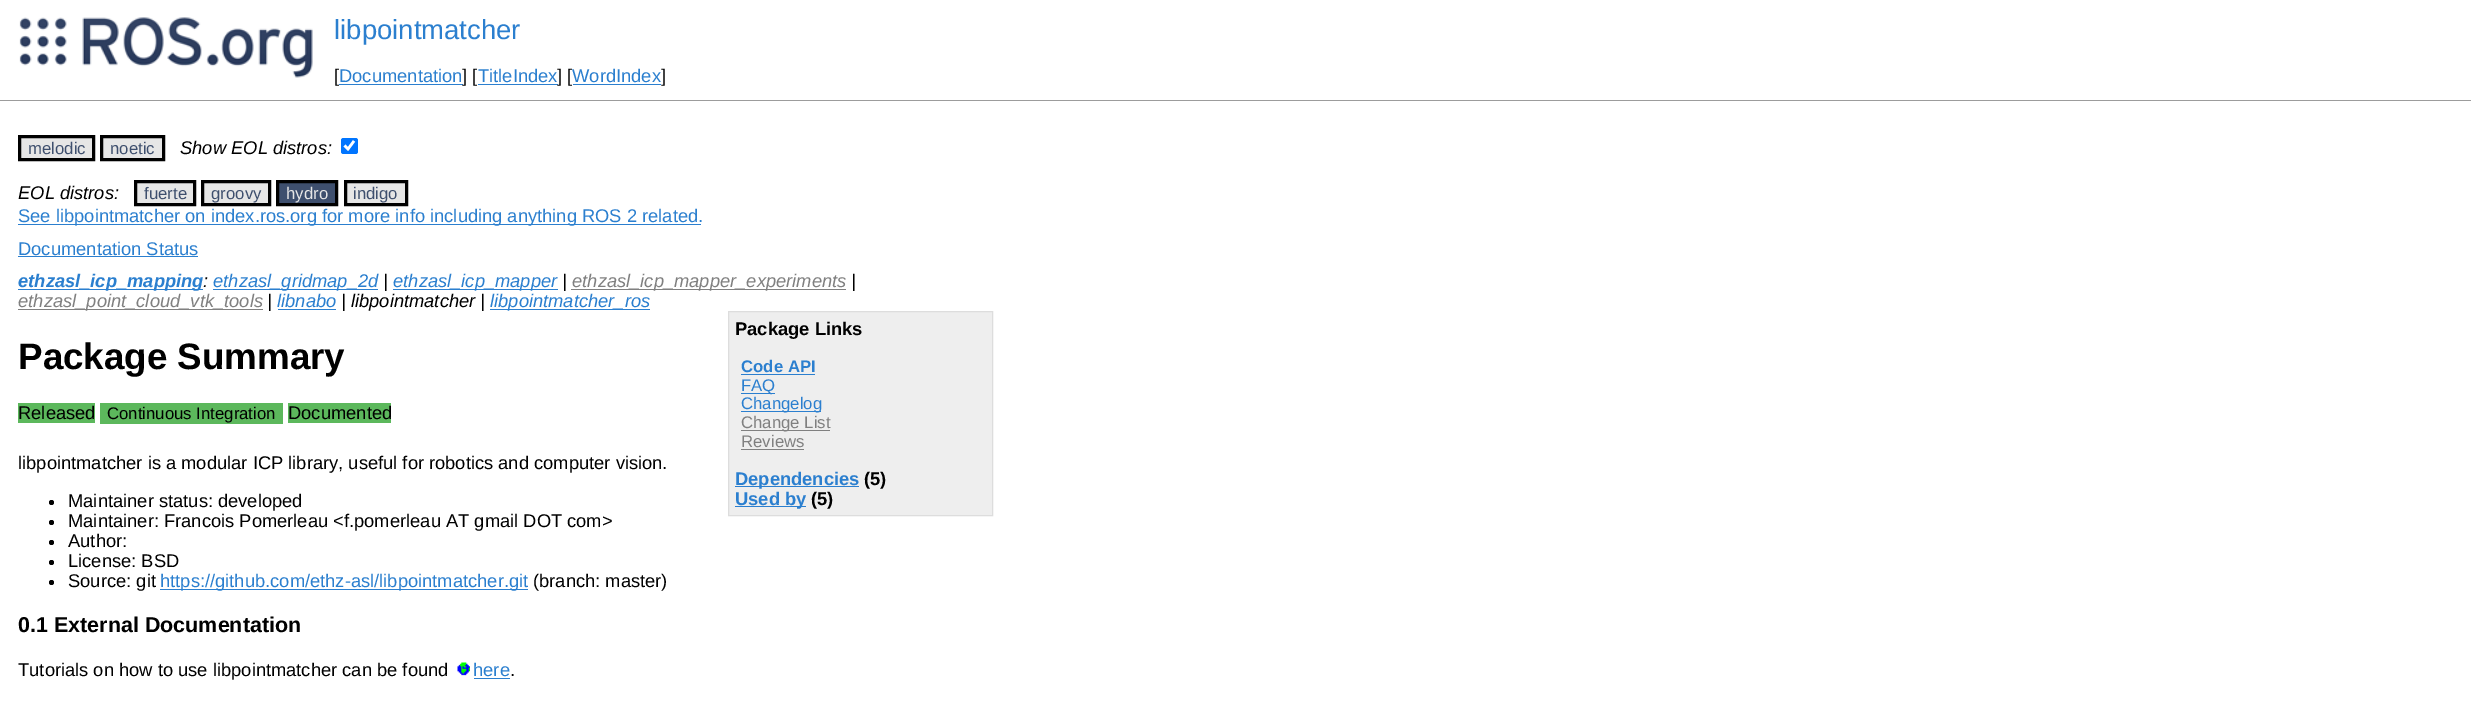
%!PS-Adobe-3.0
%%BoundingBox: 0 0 2471 706
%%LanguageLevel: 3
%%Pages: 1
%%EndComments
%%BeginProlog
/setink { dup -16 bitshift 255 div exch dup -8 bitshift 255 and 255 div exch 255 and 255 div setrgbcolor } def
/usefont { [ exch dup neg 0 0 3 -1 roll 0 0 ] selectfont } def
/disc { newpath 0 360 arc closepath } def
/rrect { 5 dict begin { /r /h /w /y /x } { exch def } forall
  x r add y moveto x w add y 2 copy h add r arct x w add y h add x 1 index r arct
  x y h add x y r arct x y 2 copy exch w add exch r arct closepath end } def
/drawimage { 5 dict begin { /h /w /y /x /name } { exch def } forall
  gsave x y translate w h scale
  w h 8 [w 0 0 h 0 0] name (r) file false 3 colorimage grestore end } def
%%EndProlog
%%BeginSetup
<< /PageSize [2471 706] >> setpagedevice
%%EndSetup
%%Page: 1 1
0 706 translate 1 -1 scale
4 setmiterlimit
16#FFFFFF setink
0 0 2471 706 rectfill
(img1.raw) 19 17 294 61 drawimage
/LiberationSans-Regular 27.5 usefont
16#2B7FCF setink
334 39 moveto (libpointmatcher) show
/LiberationSans-Regular 18.35 usefont
16#000000 setink
334 82 moveto ([) show
16#2B7FCF setink
339 82 moveto (Documentation) show
339 84 124 1 rectfill
16#000000 setink
462 82 moveto (] [) show
16#2B7FCF setink
478 82 moveto (TitleIndex) show
478 84 80 1 rectfill
16#000000 setink
557 82 moveto (] [) show
16#2B7FCF setink
572 82 moveto (WordIndex) show
573 84 88 1 rectfill
16#000000 setink
661 82 moveto (]) show
16#9C9C9C setink
0 100 2471 1 rectfill
16#E6E6E6 setink
19.5 136.5 moveto 93.5 136.5 lineto 93.5 159.5 lineto 19.5 159.5 lineto closepath gsave fill grestore
16#000000 setink
3 setlinewidth
stroke
/LiberationSans-Regular 16.75 usefont
16#3E4F6E setink
28 154 moveto (melodic) show
16#E6E6E6 setink
101.5 136.5 moveto 163.5 136.5 lineto 163.5 159.5 lineto 101.5 159.5 lineto closepath gsave fill grestore
16#000000 setink
stroke
16#3E4F6E setink
110 154 moveto (noetic) show
/LiberationSans-Italic 18.35 usefont
16#000000 setink
180 154 moveto (Show EOL distros:) show
16#0075FF setink
341 138 17 16 2.5 rrect fill
16#FFFFFF setink
2.6 setlinewidth
344.5 145.5 moveto 348 149 lineto 354 141 lineto stroke
16#000000 setink
18 199 moveto (EOL distros:) show
16#E6E6E6 setink
135.5 181.5 moveto 194.5 181.5 lineto 194.5 204.5 lineto 135.5 204.5 lineto closepath gsave fill grestore
16#000000 setink
3 setlinewidth
stroke
/LiberationSans-Regular 16.75 usefont
16#3E4F6E setink
144 199 moveto (fuerte) show
16#E6E6E6 setink
202.5 181.5 moveto 269.5 181.5 lineto 269.5 204.5 lineto 202.5 204.5 lineto closepath gsave fill grestore
16#000000 setink
stroke
16#3E4F6E setink
211 199 moveto (groovy) show
277.5 181.5 moveto 336.5 181.5 lineto 336.5 204.5 lineto 277.5 204.5 lineto closepath gsave fill grestore
16#000000 setink
stroke
16#E6E6E6 setink
286 199 moveto (hydro) show
345.5 181.5 moveto 406.5 181.5 lineto 406.5 204.5 lineto 345.5 204.5 lineto closepath gsave fill grestore
16#000000 setink
stroke
16#3E4F6E setink
353 199 moveto (indigo) show
16#2B7FCF setink
18 224 683 1 rectfill
/LiberationSans-Regular 18.35 usefont
18 222 moveto (See libpointmatcher on index.ros.org for more info including anything ROS 2 related.) show
18 255 moveto (Documentation Status) show
18 256 180 1 rectfill
18 289 185 1 rectfill
/LiberationSans-BoldItalic 18.35 usefont
18 287 moveto (ethzasl_icp_mapping) show
/LiberationSans-Italic 18.35 usefont
16#000000 setink
203 287 moveto (:) show
16#2B7FCF setink
213 289 165 1 rectfill
213 287 moveto (ethzasl_gridmap_2d) show
16#000000 setink
383 287 moveto (|) show
16#2B7FCF setink
393 289 165 1 rectfill
393 287 moveto (ethzasl_icp_mapper) show
16#000000 setink
562 287 moveto (|) show
16#808080 setink
571 289 275 1 rectfill
572 287 moveto (ethzasl_icp_mapper_experiments) show
16#000000 setink
851 287 moveto (|) show
16#808080 setink
18 309 245 1 rectfill
18 307 moveto (ethzasl_point_cloud_vtk_tools) show
16#000000 setink
267 307 moveto (|) show
16#2B7FCF setink
277 307 moveto (libnabo) show
278 309 58 1 rectfill
16#000000 setink
341 307 moveto (| libpointmatcher |) show
16#2B7FCF setink
490 309 160 1 rectfill
490 307 moveto (libpointmatcher_ros) show
/LiberationSans-Bold 36.75 usefont
16#000000 setink
18 369 moveto (Package Summary) show
16#EEEEEE setink
728.5 311.5 moveto 992.5 311.5 lineto 992.5 515.5 lineto 728.5 515.5 lineto closepath gsave fill grestore
16#DDDDDD setink
1 setlinewidth
stroke
/LiberationSans-Bold 18.35 usefont
16#000000 setink
735 335 moveto (Package Links) show
/LiberationSans-Bold 16.75 usefont
16#2B7FCF setink
741 372 moveto (Code API) show
741 374 74 1 rectfill
741 393 34 1 rectfill
/LiberationSans-Regular 16.75 usefont
741 391 moveto (FAQ) show
741 411 80 1 rectfill
741 409 moveto (Changelog) show
16#808080 setink
741 430 89 1 rectfill
741 428 moveto (Change List) show
741 447 moveto (Reviews) show
741 449 63 1 rectfill
16#2B7FCF setink
735 486 124 1 rectfill
/LiberationSans-Bold 18.35 usefont
735 485 moveto (Dependencies) show
16#000000 setink
864 485 moveto (\(5\)) show
16#2B7FCF setink
735 506 71 1 rectfill
735 505 moveto (Used by) show
16#000000 setink
811 505 moveto (\(5\)) show
16#5CB85C setink
18 403 77 20 rectfill
/LiberationSans-Regular 18.35 usefont
16#000000 setink
18 419 moveto (Released) show
16#5CB85C setink
100 403 183 21 rectfill
/LiberationSans-Regular 16.75 usefont
16#000000 setink
107 419 moveto (Continuous Integration) show
16#5CB85C setink
288 403 103 20 rectfill
/LiberationSans-Regular 18.35 usefont
16#000000 setink
288 419 moveto (Documented) show
18 469 moveto (libpointmatcher is a modular ICP library, useful for robotics and computer vision.) show
51.5 502.5 2.5 disc fill
68 507 moveto (Maintainer status: developed) show
51.5 522.5 2.5 disc fill
68 527 moveto (Maintainer: Francois Pomerleau <f.pomerleau AT gmail DOT com>) show
51.5 542.5 2.5 disc fill
68 547 moveto (Author:) show
51.5 562.5 2.5 disc fill
68 567 moveto (License: BSD) show
51.5 582.5 2.5 disc fill
68 587 moveto (Source: git) show
16#2B7FCF setink
160 589 368 1 rectfill
160 587 moveto (https://github.com/ethz-asl/libpointmatcher.git) show
16#000000 setink
533 587 moveto (\(branch: master\)) show
/LiberationSans-Bold 21.5 usefont
18 632 moveto (0.1 External Documentation) show
/LiberationSans-Regular 18.35 usefont
18 676 moveto (Tutorials on how to use libpointmatcher can be found) show
(img2.raw) 457 662 13 14 drawimage
16#2B7FCF setink
473 676 moveto (here) show
474 678 36 1 rectfill
16#000000 setink
510 676 moveto (.) show
showpage
%%EOF
